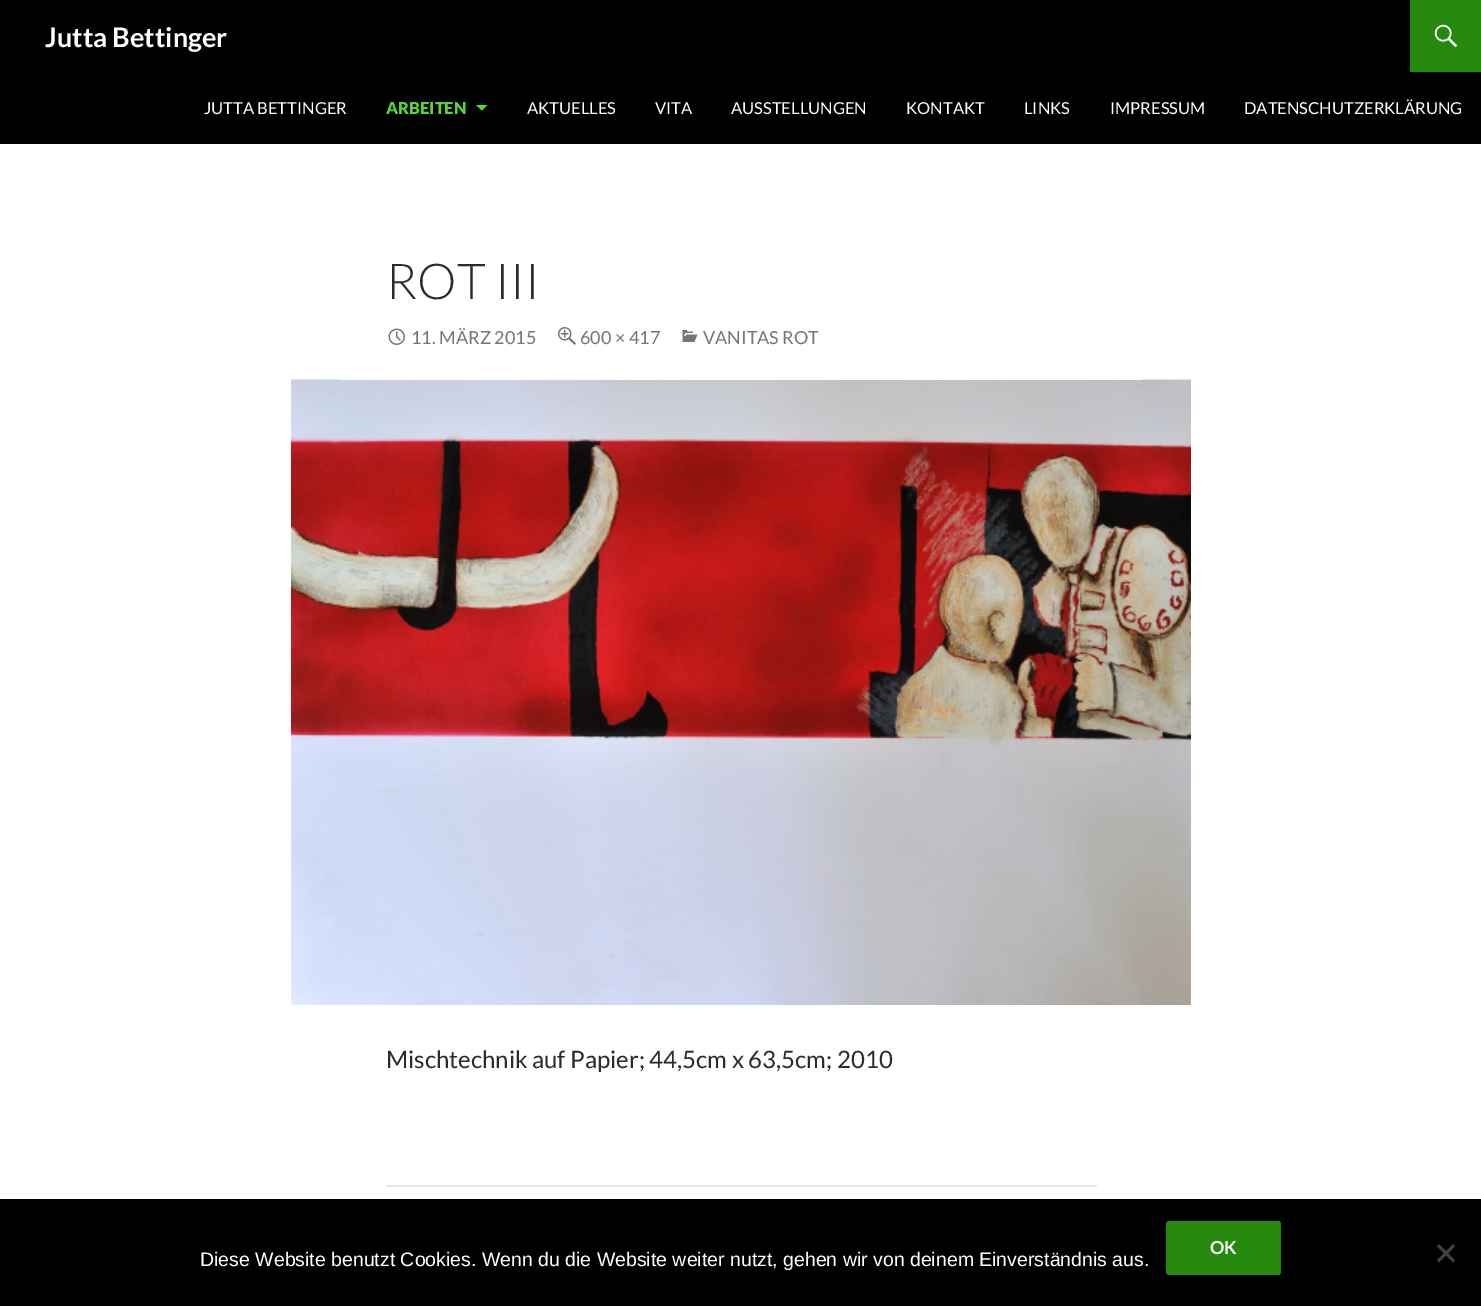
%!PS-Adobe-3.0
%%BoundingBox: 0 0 1481 1306
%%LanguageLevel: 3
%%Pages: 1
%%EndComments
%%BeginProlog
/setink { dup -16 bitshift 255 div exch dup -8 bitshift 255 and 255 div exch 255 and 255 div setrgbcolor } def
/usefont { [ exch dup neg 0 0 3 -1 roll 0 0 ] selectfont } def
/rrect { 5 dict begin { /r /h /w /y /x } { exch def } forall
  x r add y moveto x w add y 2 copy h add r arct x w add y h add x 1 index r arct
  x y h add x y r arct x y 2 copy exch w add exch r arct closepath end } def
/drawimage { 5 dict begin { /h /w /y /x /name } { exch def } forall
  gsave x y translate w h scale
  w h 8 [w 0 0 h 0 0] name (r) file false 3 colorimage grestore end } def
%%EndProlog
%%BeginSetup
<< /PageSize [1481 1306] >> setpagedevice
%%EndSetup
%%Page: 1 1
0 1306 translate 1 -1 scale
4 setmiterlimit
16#FFFFFF setink
0 0 1481 1306 rectfill
16#000000 setink
0 0 1481 144 rectfill
/Lato-Bold 27 usefont
16#FFFFFF setink
45 47 moveto (Jutta Bettinger) show
16#24890D setink
1410 0 71 72 rectfill
(img1.raw) 1434 24 24 24 drawimage
/Lato-Regular 16.5 usefont
16#FFFFFF setink
204 114 moveto (JUTTA BETTINGER) show
/Lato-Black 16.5 usefont
16#55D737 setink
386 114 moveto (ARBEITEN) show
476 105 moveto 482 110.5 lineto 487.5 105 lineto closepath fill
/Lato-Regular 16.5 usefont
16#FFFFFF setink
[
    [(AKTUELLES) 527 114]
    [(VITA) 655 114]
    [(AUSSTELLUNGEN) 731 114]
    [(KONTAKT) 906 114]
    [(LINKS) 1024 114]
    [(IMPRESSUM) 1110 114]
    [(DATENSCHUTZERKLÄRUNG) 1244 114]
] { aload pop moveto show } forall
(img5.raw) 291 379 900 626 drawimage
341 379 801 1 rectfill
/Lato-Light 49.5 usefont
16#2B2B2B setink
386 299 moveto (ROT III) show
(img2.raw) 388 328 17 17 drawimage
/Lato-Regular 18 usefont
16#767676 setink
411 344 moveto (11. MÄRZ 2015) show
(img3.raw) 558 327 18 18 drawimage
580 344 moveto (600 × 417) show
(img4.raw) 682 330 16 12 drawimage
703 344 moveto (VANITAS ROT) show
/Lato-Regular 24 usefont
16#2B2B2B setink
386 1068 moveto (Mischtechnik auf Papier; 44,5cm x 63,5cm; 2010) show
16#E6E6E6 setink
386 1185 711 2 rectfill
16#000000 setink
0 1199 1481 107 rectfill
/LiberationSans-Regular 19.5 usefont
16#FFFFFF setink
200 1266 moveto (Diese Website benutzt Cookies. Wenn du die Website weiter nutzt, gehen wir von deinem Einverständnis aus.) show
16#24890D setink
1166 1221 115 54 3 rrect fill
/Lato-Bold 18 usefont
16#FFFFFF setink
1210 1254 moveto (OK) show
16#404040 setink
1453 1244 moveto 1455 1246.5 lineto 1439 1262.5 lineto 1437 1260 lineto closepath fill
1437 1246.5 moveto 1439 1244 lineto 1455 1260 lineto 1453 1262.5 lineto closepath fill
showpage
%%EOF
